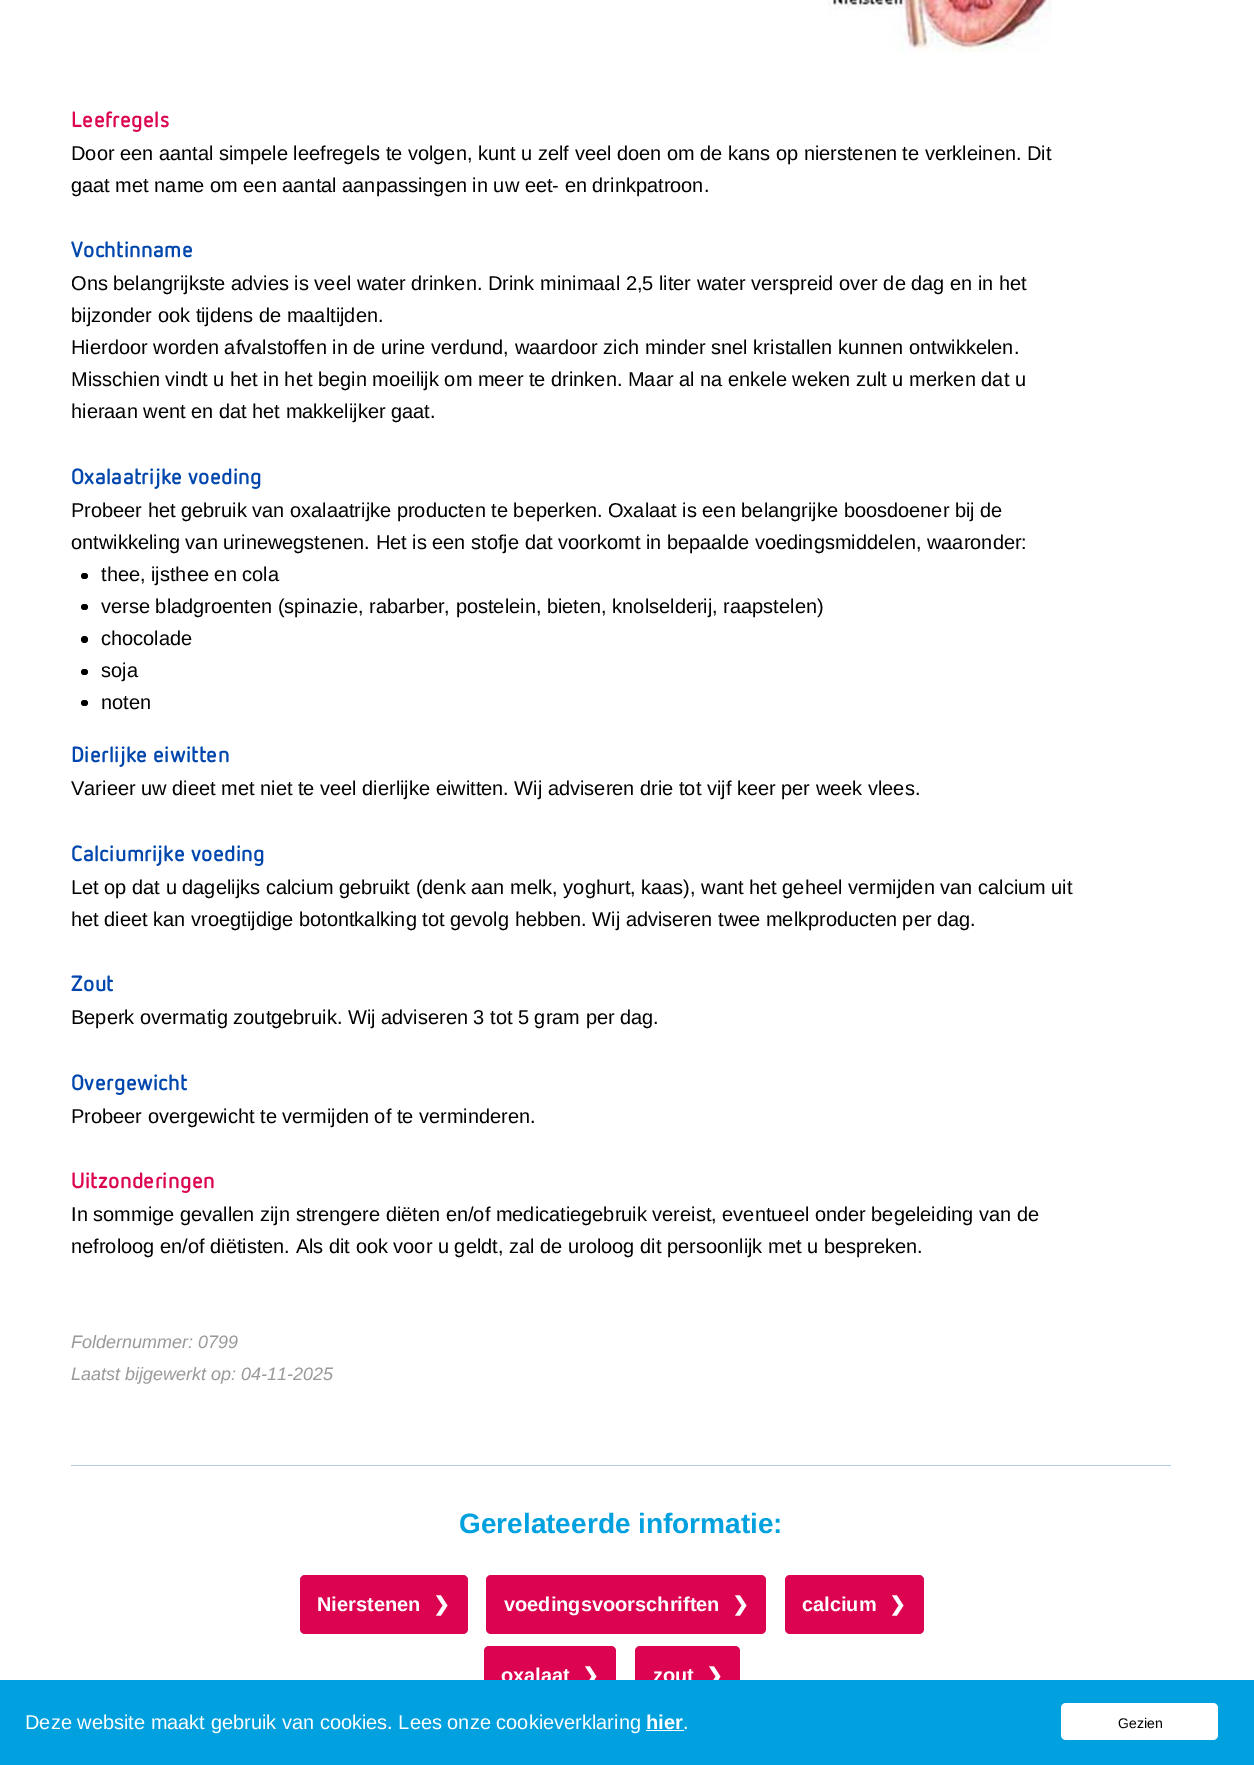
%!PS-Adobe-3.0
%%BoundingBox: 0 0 1254 1765
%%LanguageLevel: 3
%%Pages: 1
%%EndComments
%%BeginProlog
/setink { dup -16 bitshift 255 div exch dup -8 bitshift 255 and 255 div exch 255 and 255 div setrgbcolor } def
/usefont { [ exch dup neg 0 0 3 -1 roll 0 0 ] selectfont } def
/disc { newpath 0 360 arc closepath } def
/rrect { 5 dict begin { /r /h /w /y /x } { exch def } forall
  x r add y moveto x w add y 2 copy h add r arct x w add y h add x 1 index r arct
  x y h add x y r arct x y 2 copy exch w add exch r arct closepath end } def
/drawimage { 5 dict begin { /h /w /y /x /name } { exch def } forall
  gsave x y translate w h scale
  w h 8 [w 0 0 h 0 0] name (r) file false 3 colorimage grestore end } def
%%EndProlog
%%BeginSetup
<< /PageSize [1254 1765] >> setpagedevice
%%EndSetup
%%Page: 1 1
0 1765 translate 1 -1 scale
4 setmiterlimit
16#FFFFFF setink
0 0 1254 1765 rectfill
(img1.raw) 828 0 224 53 drawimage
/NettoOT-Bold 22 usefont
16#DC0451 setink
71 127 moveto (Leefregels) show
/LiberationSans-Regular 20 usefont
16#000000 setink
71 160 moveto (Door een aantal simpele leefregels te volgen, kunt u zelf veel doen om de kans op nierstenen te verkleinen. Dit) show
71 192 moveto (gaat met name om een aantal aanpassingen in uw eet- en drinkpatroon.) show
/NettoOT-Bold 22 usefont
16#0046AD setink
71 257 moveto (Vochtinname) show
/LiberationSans-Regular 20 usefont
16#000000 setink
[
    [(Ons belangrijkste advies is veel water drinken. Drink minimaal 2,5 liter water verspreid over de dag en in het) 71 290]
    [(bijzonder ook tijdens de maaltijden.) 71 322]
    [(Hierdoor worden afvalstoffen in de urine verdund, waardoor zich minder snel kristallen kunnen ontwikkelen.) 71 354]
    [(Misschien vindt u het in het begin moeilijk om meer te drinken. Maar al na enkele weken zult u merken dat u) 71 386]
    [(hieraan went en dat het makkelijker gaat.) 71 418]
] { aload pop moveto show } forall
/NettoOT-Bold 22 usefont
16#0046AD setink
71 484 moveto (Oxalaatrijke voeding) show
/LiberationSans-Regular 20 usefont
16#000000 setink
71 517 moveto (Probeer het gebruik van oxalaatrijke producten te beperken. Oxalaat is een belangrijke boosdoener bij de) show
71 549 moveto (ontwikkeling van urinewegstenen. Het is een stofje dat voorkomt in bepaalde voedingsmiddelen, waaronder:) show
81 573 7 6 3 rrect fill
101 581 moveto (thee, ijsthee en cola) show
81 604 7 6 3 rrect fill
101 613 moveto (verse bladgroenten \(spinazie, rabarber, postelein, bieten, knolselderij, raapstelen\)) show
84.5 639.5 3.5 disc fill
101 645 moveto (chocolade) show
81 669 7 6 3 rrect fill
101 677 moveto (soja) show
81 700 7 6 3 rrect fill
101 709 moveto (noten) show
/NettoOT-Bold 22 usefont
16#0046AD setink
71 762 moveto (Dierlijke eiwitten) show
/LiberationSans-Regular 20 usefont
16#000000 setink
71 795 moveto (Varieer uw dieet met niet te veel dierlijke eiwitten. Wij adviseren drie tot vijf keer per week vlees.) show
/NettoOT-Bold 22 usefont
16#0046AD setink
71 861 moveto (Calciumrijke voeding) show
/LiberationSans-Regular 20 usefont
16#000000 setink
71 894 moveto (Let op dat u dagelijks calcium gebruikt \(denk aan melk, yoghurt, kaas\), want het geheel vermijden van calcium uit) show
71 926 moveto (het dieet kan vroegtijdige botontkalking tot gevolg hebben. Wij adviseren twee melkproducten per dag.) show
/NettoOT-Bold 22 usefont
16#0046AD setink
71 991 moveto (Zout) show
/LiberationSans-Regular 20 usefont
16#000000 setink
71 1024 moveto (Beperk overmatig zoutgebruik. Wij adviseren 3 tot 5 gram per dag.) show
/NettoOT-Bold 22 usefont
16#0046AD setink
71 1090 moveto (Overgewicht) show
/LiberationSans-Regular 20 usefont
16#000000 setink
71 1123 moveto (Probeer overgewicht te vermijden of te verminderen.) show
/NettoOT-Bold 22 usefont
16#DC0451 setink
71 1188 moveto (Uitzonderingen) show
/LiberationSans-Regular 20 usefont
16#000000 setink
71 1221 moveto (In sommige gevallen zijn strengere diëten en/of medicatiegebruik vereist, eventueel onder begeleiding van de) show
71 1253 moveto (nefroloog en/of diëtisten. Als dit ook voor u geldt, zal de uroloog dit persoonlijk met u bespreken.) show
/LiberationSans-Italic 18 usefont
16#999999 setink
71 1348 moveto (Foldernummer: 0799) show
71 1380 moveto (Laatst bijgewerkt op: 04-11-2025) show
16#B2C9DE setink
71 1465 1100 1 rectfill
/LiberationSans-Bold 28 usefont
16#00A1DE setink
459 1533 moveto (Gerelateerde informatie:) show
16#DC0451 setink
300 1575 168 59 5 rrect fill
/LiberationSans-Bold 20 usefont
16#FFFFFF setink
317 1611 moveto (Nierstenen) show
/DejaVuSans-Bold 20 usefont
433 1611 moveto (❯) show
16#DC0451 setink
486 1575 280 59 5 rrect fill
/LiberationSans-Bold 20 usefont
16#FFFFFF setink
504 1611 moveto (voedingsvoorschriften) show
/DejaVuSans-Bold 20 usefont
732 1611 moveto (❯) show
16#DC0451 setink
785 1575 139 59 5 rrect fill
/LiberationSans-Bold 20 usefont
16#FFFFFF setink
802 1611 moveto (calcium) show
/DejaVuSans-Bold 20 usefont
889 1611 moveto (❯) show
16#DC0451 setink
484 1646 132 59 5 rrect fill
/LiberationSans-Bold 20 usefont
16#FFFFFF setink
501 1682 moveto (oxalaat) show
/DejaVuSans-Bold 20 usefont
582 1682 moveto (❯) show
16#DC0451 setink
635 1646 105 59 5 rrect fill
/LiberationSans-Bold 20 usefont
16#FFFFFF setink
653 1682 moveto (zout) show
/DejaVuSans-Bold 20 usefont
706 1682 moveto (❯) show
16#00A1DE setink
0 1680 1254 85 rectfill
/LiberationSans-Regular 20 usefont
16#FFFFFF setink
25 1729 moveto (Deze website maakt gebruik van cookies. Lees onze cookieverklaring) show
/LiberationSans-Bold 20 usefont
646 1729 moveto (hier) show
646 1730 38 1 rectfill
/LiberationSans-Regular 20 usefont
683 1729 moveto (.) show
1061 1703 157 37 5 rrect fill
/LiberationSans-Regular 14 usefont
16#000000 setink
1118 1728 moveto (Gezien) show
showpage
%%EOF
